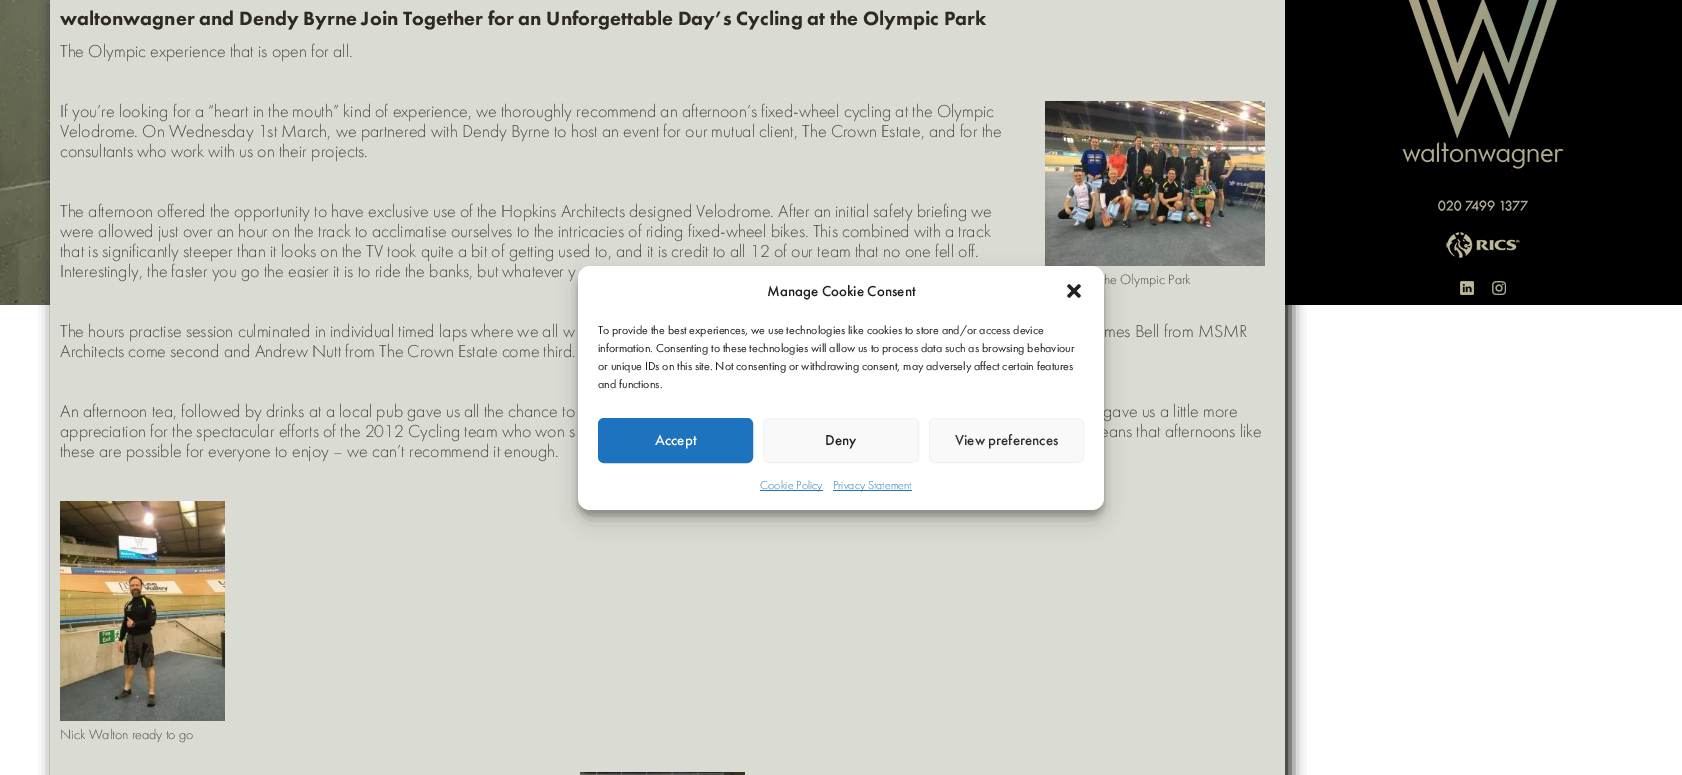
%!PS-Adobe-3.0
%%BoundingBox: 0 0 1682 775
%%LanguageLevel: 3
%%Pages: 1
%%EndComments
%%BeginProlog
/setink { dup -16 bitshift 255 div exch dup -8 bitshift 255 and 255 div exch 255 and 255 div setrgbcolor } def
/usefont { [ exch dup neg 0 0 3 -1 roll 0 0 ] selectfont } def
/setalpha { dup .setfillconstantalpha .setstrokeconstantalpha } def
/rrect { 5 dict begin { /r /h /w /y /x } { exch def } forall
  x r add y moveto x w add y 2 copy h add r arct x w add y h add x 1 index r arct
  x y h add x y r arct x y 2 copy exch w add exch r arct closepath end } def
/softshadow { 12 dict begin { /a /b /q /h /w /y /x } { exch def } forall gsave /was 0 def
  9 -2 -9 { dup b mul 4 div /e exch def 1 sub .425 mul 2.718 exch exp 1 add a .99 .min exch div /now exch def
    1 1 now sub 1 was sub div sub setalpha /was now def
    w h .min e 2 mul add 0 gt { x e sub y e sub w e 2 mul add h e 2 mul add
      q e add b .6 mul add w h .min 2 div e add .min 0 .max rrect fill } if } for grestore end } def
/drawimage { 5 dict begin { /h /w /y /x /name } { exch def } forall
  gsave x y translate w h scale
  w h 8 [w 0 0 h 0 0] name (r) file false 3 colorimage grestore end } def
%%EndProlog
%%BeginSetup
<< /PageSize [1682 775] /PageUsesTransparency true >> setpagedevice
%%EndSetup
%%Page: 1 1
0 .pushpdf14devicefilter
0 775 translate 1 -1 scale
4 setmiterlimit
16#FFFFFF setink
0 0 1682 775 rectfill
(img1.raw) 0 0 1682 305 drawimage
16#000000 setink
55 0 1235 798 0 7.5 1 softshadow
16#DADCD4 setink
50 0 1235 775 rectfill
/FuturaPT-Black 20 usefont
16#2E2923 setink
60 25 moveto (waltonwagner and Dendy Byrne Join Together for an Unforgettable Day’s Cycling at the Olympic Park) show
/FuturaPT-Light 18 usefont
16#494543 setink
[
    [(The Olympic experience that is open for all.) 60 57]
    [(If you’re looking for a “heart in the mouth” kind of experience, we thoroughly recommend an afternoon’s fixed-wheel cycling at the Olympic) 60 117]
    [(Velodrome. On Wednesday 1st March, we partnered with Dendy Byrne to host an event for our mutual client, The Crown Estate, and for the) 60 137]
    [(consultants who work with us on their projects.) 60 157]
    [(The afternoon offered the opportunity to have exclusive use of the Hopkins Architects designed Velodrome. After an initial safety briefing we) 60 217]
    [(were allowed just over an hour on the track to acclimatise ourselves to the intricacies of riding fixed-wheel bikes. This combined with a track) 60 237]
    [(that is significantly steeper than it looks on the TV took quite a bit of getting used to, and it is credit to all 12 of our team that no one fell off.) 60 257]
    [(Interestingly, the faster you go the easier it is to ride the banks, but whatever y) 60 277]
] { aload pop moveto show } forall
(img2.raw) 1045 101 220 165 drawimage
/FuturaPT-Light 14 usefont
1104 284 moveto (he Olympic Park) show
/FuturaPT-Light 18 usefont
[
    [(The hours practise session culminated in individual timed laps where we all w) 60 337]
    [(mes Bell from MSMR) 1104 337]
    [(Architects come second and Andrew Nutt from The Crown Estate come third.) 60 357]
    [(An afternoon tea, followed by drinks at a local pub gave us all the chance to) 60 417]
    [(gave us a little more) 1103 417]
    [(appreciation for the spectacular efforts of the 2012 Cycling team who won s) 60 437]
    [(eans that afternoons like) 1100 437]
    [(these are possible for everyone to enjoy – we can’t recommend it enough.) 60 457]
] { aload pop moveto show } forall
(img3.raw) 60 501 165 220 drawimage
/FuturaPT-Light 14 usefont
60 739 moveto (Nick Walton ready to go) show
(img4.raw) 580 772 165 3 drawimage
(img5.raw) 1402 0 162 172 drawimage
(img6.raw) 1438 200 90 11 drawimage
(img7.raw) 1446 232 74 26 drawimage
(img8.raw) 1460 281 14 14 drawimage
(img9.raw) 1492 281 14 14 drawimage
16#000000 setink
578 272 526 244 12 3 0.23 softshadow
578 276 526 244 12 10 0.19 softshadow
16#FFFFFF setink
578 266 526 244 12 rrect fill
/FuturaPT-Medium 15 usefont
16#222222 setink
767 296 moveto (Manage Cookie Consent) show
(img10.raw) 1067 284 14 14 drawimage
/FuturaPT-Regular 12 usefont
[
    [(To provide the best experiences, we use technologies like cookies to store and/or access device) 598 334]
    [(information. Consenting to these technologies will allow us to process data such as browsing behaviour) 598 352]
    [(or unique IDs on this site. Not consenting or withdrawing consent, may adversely affect certain features) 598 370]
    [(and functions.) 598 388]
] { aload pop moveto show } forall
16#1E73BE setink
598.5 418.5 154 44 5.5 rrect gsave fill grestore
stroke
/FuturaPT-Medium 15 usefont
16#FFFFFF setink
655 445 moveto (Accept) show
16#F9F9F9 setink
763.5 418.5 155 44 5.5 rrect gsave fill grestore
16#F2F2F2 setink
stroke
16#222222 setink
825 445 moveto (Deny) show
16#F9F9F9 setink
929.5 418.5 154 44 5.5 rrect gsave fill grestore
16#F2F2F2 setink
stroke
16#333333 setink
955 445 moveto (View preferences) show
16#1E73BE setink
760 490 63 1 rectfill
/FuturaPT-Light 12 usefont
760 489 moveto (Cookie Policy) show
833 490 79 1 rectfill
833 489 moveto (Privacy Statement) show
.poppdf14devicefilter showpage
%%EOF
